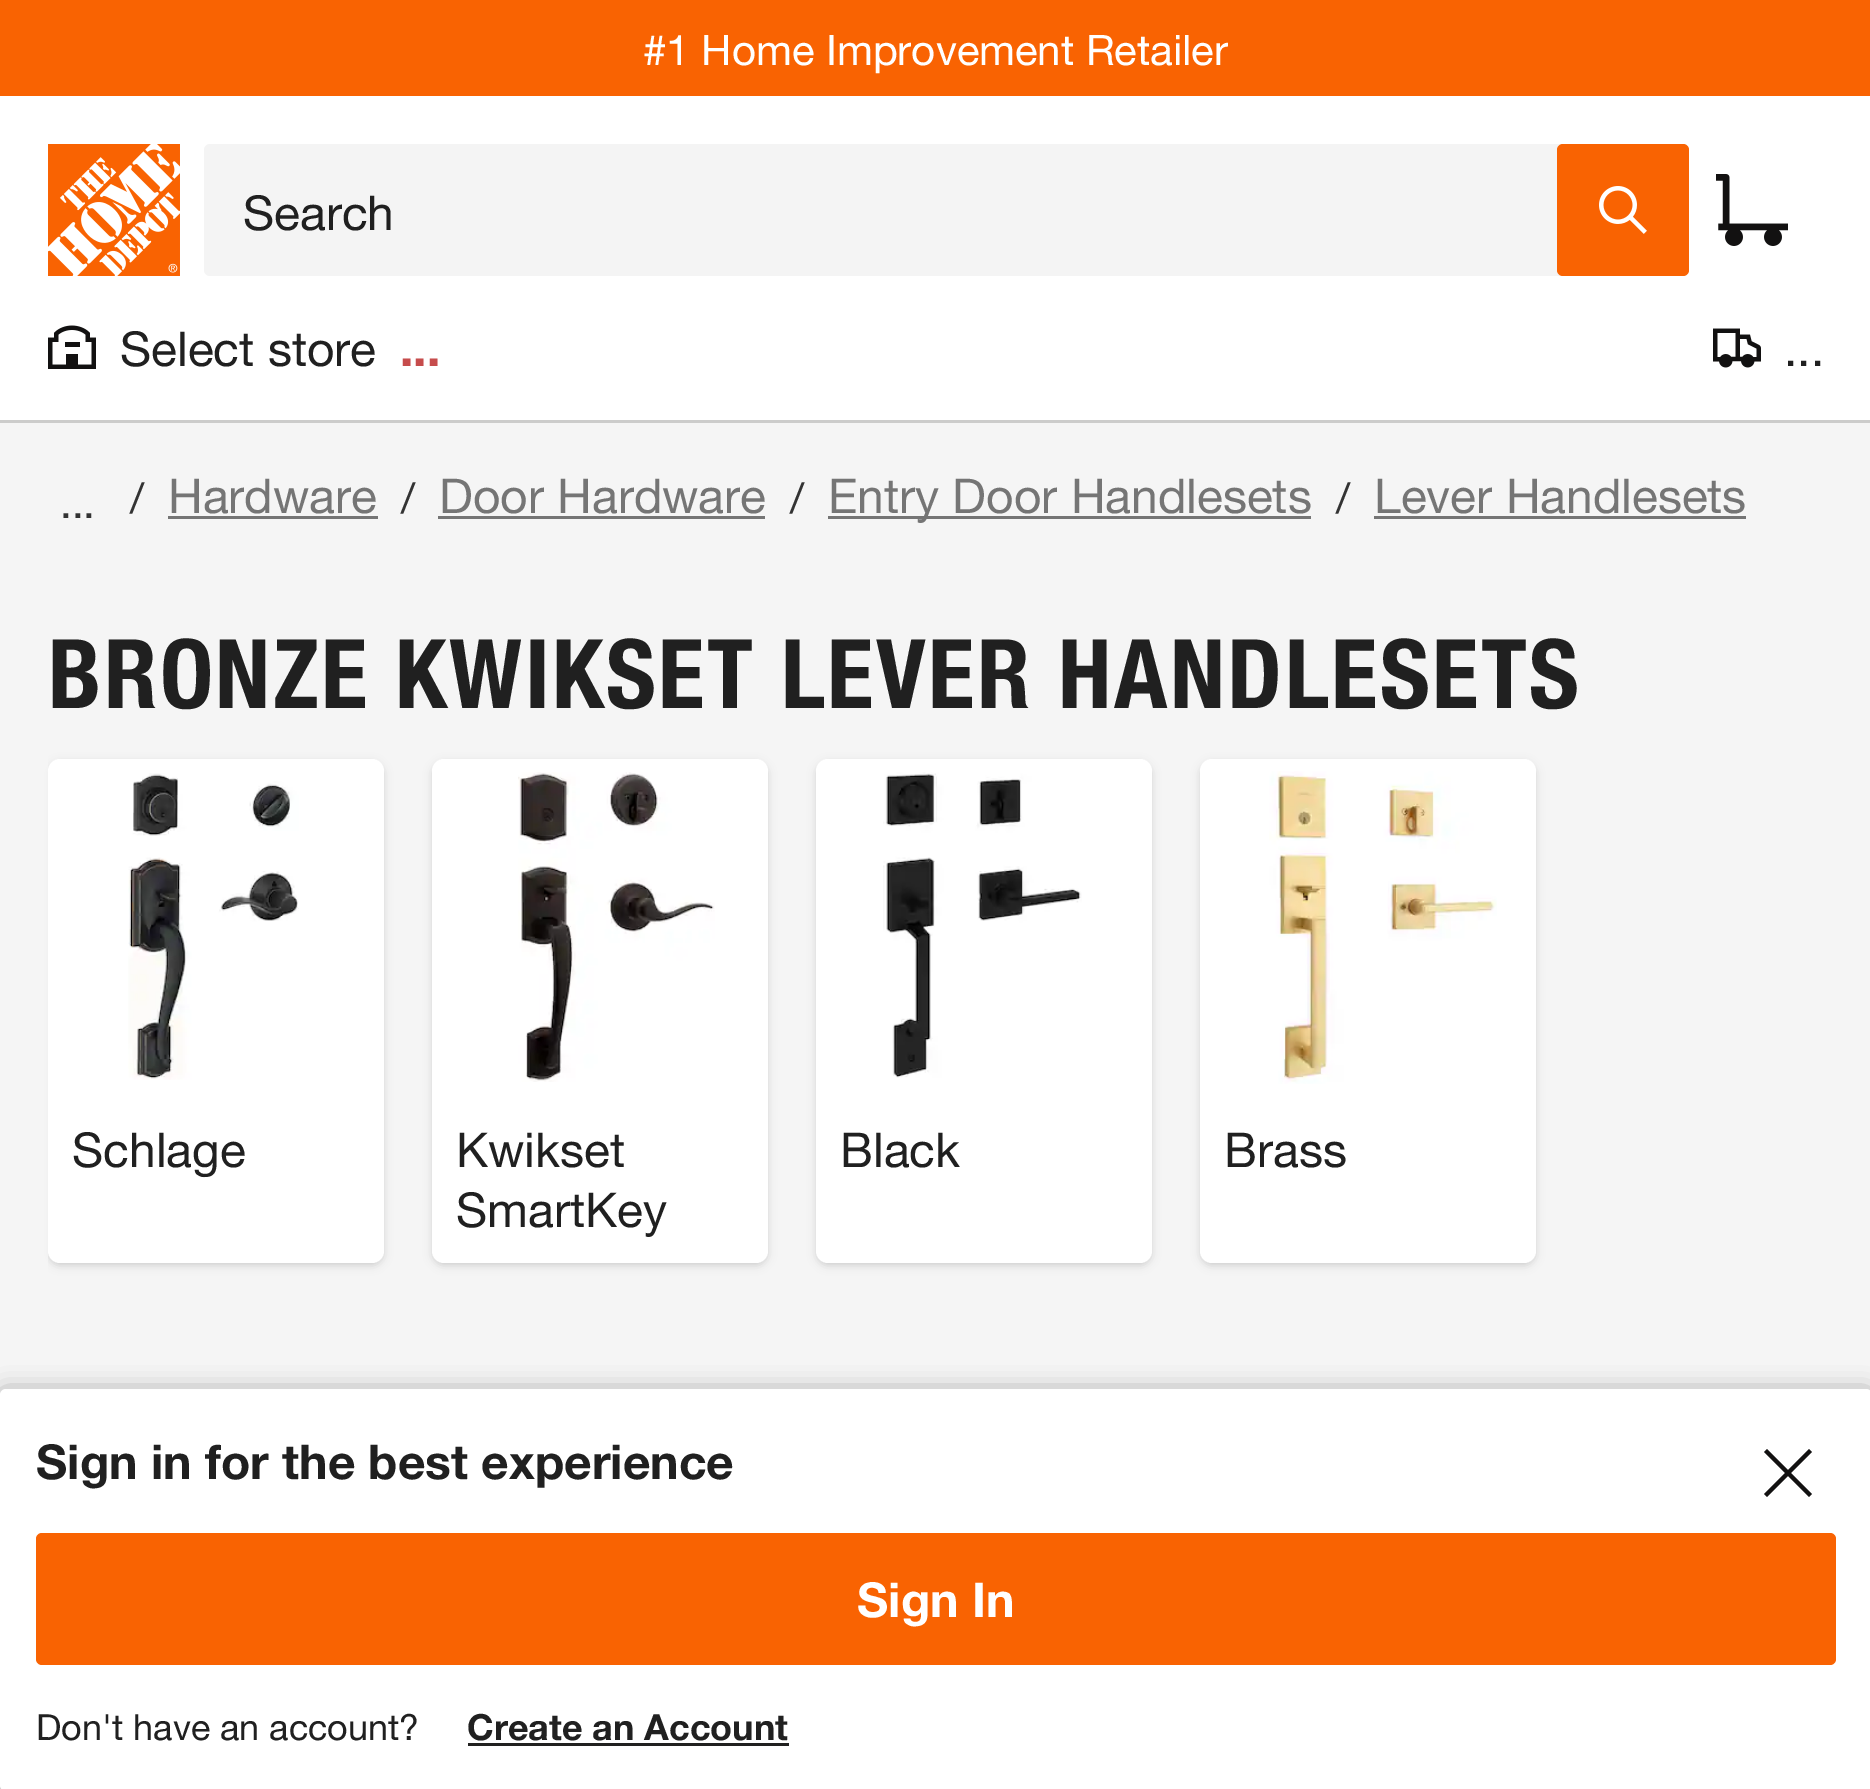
%!PS-Adobe-3.0
%%BoundingBox: 0 0 1870 1789
%%LanguageLevel: 3
%%Pages: 1
%%EndComments
%%BeginProlog
/setink { dup -16 bitshift 255 div exch dup -8 bitshift 255 and 255 div exch 255 and 255 div setrgbcolor } def
/usefont { [ exch dup neg 0 0 3 -1 roll 0 0 ] selectfont } def
/setalpha { dup .setfillconstantalpha .setstrokeconstantalpha } def
/rrect { 5 dict begin { /r /h /w /y /x } { exch def } forall
  x r add y moveto x w add y 2 copy h add r arct x w add y h add x 1 index r arct
  x y h add x y r arct x y 2 copy exch w add exch r arct closepath end } def
/softshadow { 12 dict begin { /a /b /q /h /w /y /x } { exch def } forall gsave /was 0 def
  9 -2 -9 { dup b mul 4 div /e exch def 1 sub .425 mul 2.718 exch exp 1 add a .99 .min exch div /now exch def
    1 1 now sub 1 was sub div sub setalpha /was now def
    w h .min e 2 mul add 0 gt { x e sub y e sub w e 2 mul add h e 2 mul add
      q e add b .6 mul add w h .min 2 div e add .min 0 .max rrect fill } if } for grestore end } def
/drawimage { 5 dict begin { /h /w /y /x /name } { exch def } forall
  gsave x y translate w h scale
  w h 8 [w 0 0 h 0 0] name (r) file false 3 colorimage grestore end } def
%%EndProlog
%%BeginSetup
<< /PageSize [1870 1789] /PageUsesTransparency true >> setpagedevice
%%EndSetup
%%Page: 1 1
0 .pushpdf14devicefilter
0 1789 translate 1 -1 scale
4 setmiterlimit
16#FFFFFF setink
0 0 1870 1789 rectfill
16#F96302 setink
0 0 1870 96 rectfill
/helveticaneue-Regular 42 usefont
16#FFFFFF setink
643 65 moveto (#1 Home Improvement Retailer) show
16#CCCCCB setink
0 420 1870 3 rectfill
(img1.raw) 48 144 132 132 drawimage
16#F4F4F4 setink
204 144 1485 132 6 rrect fill
/helveticaneue-Regular 48 usefont
16#202020 setink
243 230 moveto (Search) show
16#F96302 setink
1557 144 132 132 6 rrect fill
(img2.raw) 1599 186 48 48 drawimage
(img3.raw) 1716 174 72 72 drawimage
(img4.raw) 48 325 48 44 drawimage
16#202020 setink
120 366 moveto (Select store) show
/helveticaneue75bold-Bold 48 usefont
16#C64C4C setink
400 366 moveto (...) show
(img5.raw) 1713 328 48 40 drawimage
/helveticaneue-Regular 48 usefont
16#202020 setink
1784 366 moveto (...) show
16#F5F5F5 setink
0 423 1870 972 rectfill
16#000000 setink
0 1392 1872 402 6 12 0.38 softshadow
16#FFFFFF setink
0 1389 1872 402 6 rrect fill
/helveticaneue75bold-Bold 48 usefont
16#202020 setink
36 1479 moveto (Sign in for the best experience) show
16#121111 setink
1788 1470 moveto 1767 1449 lineto 1764 1452 lineto 1785 1473 lineto 1764 1494 lineto 1767 1497 lineto 1788 1476 lineto 1809 1497 lineto 1812 1494 lineto 1791 1473 lineto 1812 1452 lineto 1809 1449 lineto closepath fill
16#F96302 setink
36 1533 1800 132 6 rrect fill
16#FFFFFF setink
857 1617 moveto (Sign In) show
/helveticaneue-Regular 36 usefont
16#202020 setink
36 1740 moveto (Don't have an account?) show
/helveticaneue75bold-Bold 36 usefont
467 1740 moveto (Create an Account) show
16#212120 setink
468 1743 321 3 rectfill
/helveticaneue-Regular 42 usefont
16#333333 setink
60 518 moveto (...) show
130 513 moveto (/) show
/helveticaneue-Regular 48 usefont
16#757575 setink
168 513 moveto (Hardware) show
168 516 210 3 rectfill
/helveticaneue-Regular 42 usefont
16#333333 setink
401 513 moveto (/) show
/helveticaneue-Regular 48 usefont
16#757575 setink
439 513 moveto (Door Hardware) show
438 516 327 3 rectfill
/helveticaneue-Regular 42 usefont
16#333333 setink
790 513 moveto (/) show
16#757575 setink
828 516 483 3 rectfill
/helveticaneue-Regular 48 usefont
828 513 moveto (Entry Door Handlesets) show
/helveticaneue-Regular 42 usefont
16#333333 setink
1336 513 moveto (/) show
/helveticaneue-Regular 48 usefont
16#757575 setink
1374 513 moveto (Lever Handlesets) show
1374 516 372 3 rectfill
/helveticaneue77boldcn-Bold 96 usefont
16#202020 setink
48 708 moveto 2.4 0 (BRONZE KWIKSET LEVER HANDLESETS) ashow
16#000000 setink
51 765 330 498 9 3 0.1 softshadow
gsave
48 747 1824 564 rectclip
48 762 336 504 12 4.5 0.1 softshadow
grestore
16#FFFFFF setink
48 759 336 504 12 rrect fill
(img6.raw) 128 773 171 307 drawimage
/helveticaneue-Regular 48 usefont
16#202020 setink
72 1167 moveto (Schlage) show
16#000000 setink
435 765 330 498 9 3 0.1 softshadow
432 762 336 504 12 4.5 0.1 softshadow
16#FFFFFF setink
432 759 336 504 12 rrect fill
(img7.raw) 518 772 197 310 drawimage
16#202020 setink
456 1167 moveto (Kwikset) show
456 1227 moveto (SmartKey) show
16#000000 setink
819 765 330 498 9 3 0.1 softshadow
816 762 336 504 12 4.5 0.1 softshadow
16#FFFFFF setink
816 759 336 504 12 rrect fill
(img8.raw) 883 772 199 306 drawimage
16#202020 setink
840 1167 moveto (Black) show
16#000000 setink
1203 765 330 498 9 3 0.1 softshadow
1200 762 336 504 12 4.5 0.1 softshadow
16#FFFFFF setink
1200 759 336 504 12 rrect fill
(img9.raw) 1269 771 228 313 drawimage
16#202020 setink
1224 1167 moveto (Brass) show
.poppdf14devicefilter showpage
%%EOF
